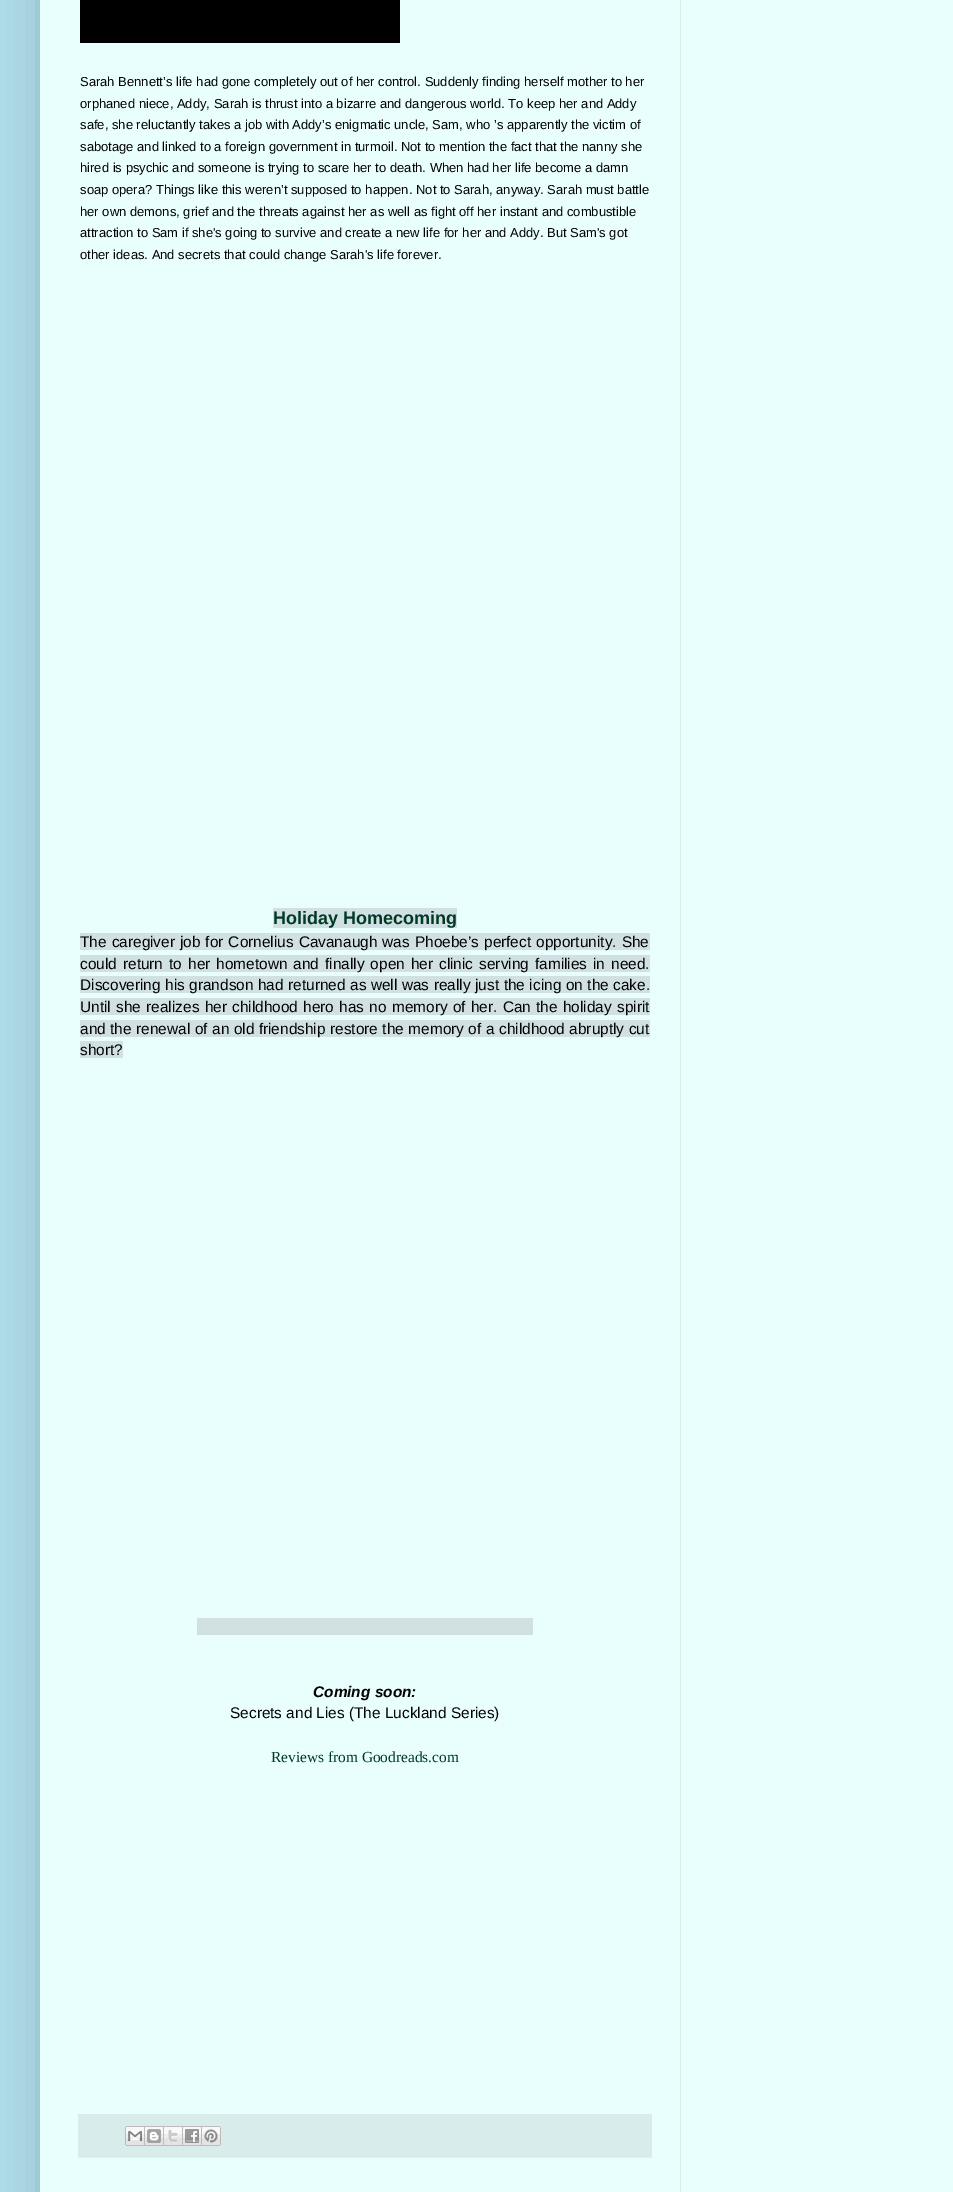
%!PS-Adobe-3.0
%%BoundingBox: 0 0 953 2192
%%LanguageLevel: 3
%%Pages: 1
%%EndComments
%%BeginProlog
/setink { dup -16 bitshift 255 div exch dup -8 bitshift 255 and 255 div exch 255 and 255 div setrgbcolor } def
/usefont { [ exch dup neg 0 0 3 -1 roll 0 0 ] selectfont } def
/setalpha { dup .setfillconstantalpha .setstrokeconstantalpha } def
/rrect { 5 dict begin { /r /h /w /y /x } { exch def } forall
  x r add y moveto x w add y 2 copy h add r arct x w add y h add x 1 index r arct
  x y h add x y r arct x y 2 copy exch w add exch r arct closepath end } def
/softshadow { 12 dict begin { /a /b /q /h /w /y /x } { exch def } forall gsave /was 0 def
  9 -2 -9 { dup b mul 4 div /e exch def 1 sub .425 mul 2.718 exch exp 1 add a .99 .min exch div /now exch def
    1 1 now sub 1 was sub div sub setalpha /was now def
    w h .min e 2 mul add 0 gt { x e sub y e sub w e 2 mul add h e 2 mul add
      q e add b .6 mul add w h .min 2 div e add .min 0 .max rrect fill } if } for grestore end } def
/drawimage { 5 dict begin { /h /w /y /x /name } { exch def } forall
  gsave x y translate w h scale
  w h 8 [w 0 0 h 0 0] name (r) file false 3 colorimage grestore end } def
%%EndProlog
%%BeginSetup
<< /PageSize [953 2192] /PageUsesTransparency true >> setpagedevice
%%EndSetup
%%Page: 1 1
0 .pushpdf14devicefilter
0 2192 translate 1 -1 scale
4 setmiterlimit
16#AEDCE9 setink
0 0 953 2192 rectfill
16#000000 setink
40 -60 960 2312 0 20 0.15 softshadow
16#E9FFFE setink
40 0 913 2192 rectfill
16#000000 setink
80 0 320 43 rectfill
/LiberationSans-Regular 13 usefont
[
    [(Sarah Bennett’s life had gone completely out of her control. Suddenly finding herself mother to her) 80 86]
    [(orphaned niece, Addy, Sarah is thrust into a bizarre and dangerous world. To keep her and Addy) 80 108]
    [(safe, she reluctantly takes a job with Addy’s enigmatic uncle, Sam, who ’s apparently the victim of) 80 129]
    [(sabotage and linked to a foreign government in turmoil. Not to mention the fact that the nanny she) 80 151]
    [(hired is psychic and someone is trying to scare her to death. When had her life become a damn) 80 172]
    [(soap opera? Things like this weren’t supposed to happen. Not to Sarah, anyway. Sarah must battle) 80 194]
    [(her own demons, grief and the threats against her as well as fight off her instant and combustible) 80 216]
    [(attraction to Sam if she's going to survive and create a new life for her and Addy. But Sam's got) 80 237]
    [(other ideas. And secrets that could change Sarah's life forever.) 80 259]
] { aload pop moveto show } forall
16#D0E0E3 setink
273 908 184 20 rectfill
/LiberationSans-Bold 18 usefont
16#003A26 setink
273 924 moveto (Holiday Homecoming) show
16#D0E0E3 setink
80 933 570 17 rectfill
/LiberationSans-Regular 15.4 usefont
16#000000 setink
80 947 moveto 0.75 0 32 (The caregiver job for Cornelius Cavanaugh was Phoebe’s perfect opportunity. She) widthshow
16#D0E0E3 setink
80 955 570 17 rectfill
16#000000 setink
80 969 moveto 1.75 0 32 (could return to her hometown and finally open her clinic serving families in need.) widthshow
16#D0E0E3 setink
80 976 570 17 rectfill
16#000000 setink
80 990 moveto 0.25 0 32 (Discovering his grandson had returned as well was really just the icing on the cake.) widthshow
16#D0E0E3 setink
80 998 570 17 rectfill
16#000000 setink
80 1012 moveto 1 0 32 (Until she realizes her childhood hero has no memory of her. Can the holiday spirit) widthshow
16#D0E0E3 setink
80 1020 570 17 rectfill
16#000000 setink
80 1034 moveto 0.25 0 32 (and the renewal of an old friendship restore the memory of a childhood abruptly cut) widthshow
16#D0E0E3 setink
80 1041 43 17 rectfill
16#000000 setink
80 1055 moveto (short?) show
16#D0E0E3 setink
197 1618 336 17 rectfill
/LiberationSans-BoldItalic 15.4 usefont
16#000000 setink
313 1697 moveto (Coming soon:) show
/LiberationSans-Regular 15.4 usefont
230 1718 moveto (Secrets and Lies \(The Luckland Series\)) show
/LiberationSerif-Regular 15.4 usefont
16#003A26 setink
271 1762 moveto (Reviews from Goodreads.com) show
16#D9ECEC setink
78 2114 574 43 rectfill
16#EBEBEB setink
78 2157 574 1 rectfill
(img1.raw) 125 2126 20 20 drawimage
(img2.raw) 145 2126 19 20 drawimage
(img3.raw) 164 2126 19 20 drawimage
(img4.raw) 183 2126 19 20 drawimage
(img5.raw) 202 2126 19 20 drawimage
16#D9ECE8 setink
680 0 1 2192 rectfill
.poppdf14devicefilter showpage
%%EOF
